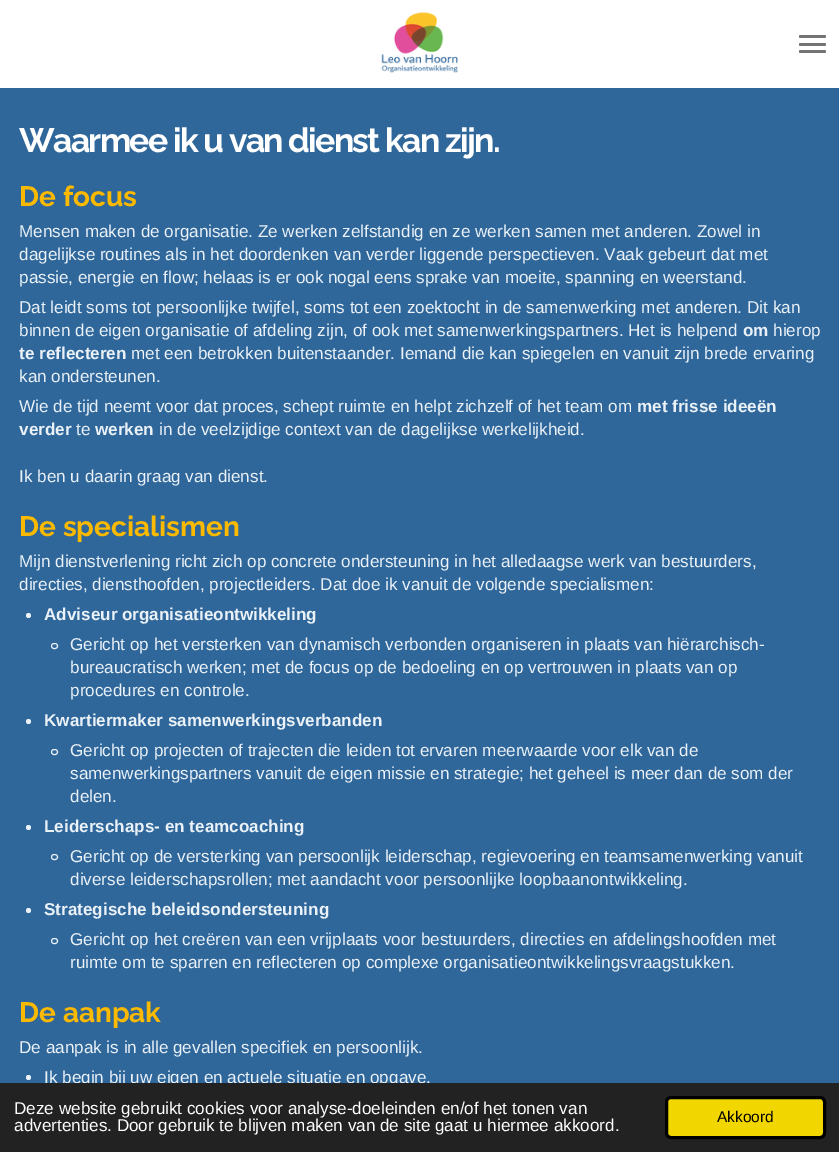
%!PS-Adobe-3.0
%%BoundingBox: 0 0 839 1152
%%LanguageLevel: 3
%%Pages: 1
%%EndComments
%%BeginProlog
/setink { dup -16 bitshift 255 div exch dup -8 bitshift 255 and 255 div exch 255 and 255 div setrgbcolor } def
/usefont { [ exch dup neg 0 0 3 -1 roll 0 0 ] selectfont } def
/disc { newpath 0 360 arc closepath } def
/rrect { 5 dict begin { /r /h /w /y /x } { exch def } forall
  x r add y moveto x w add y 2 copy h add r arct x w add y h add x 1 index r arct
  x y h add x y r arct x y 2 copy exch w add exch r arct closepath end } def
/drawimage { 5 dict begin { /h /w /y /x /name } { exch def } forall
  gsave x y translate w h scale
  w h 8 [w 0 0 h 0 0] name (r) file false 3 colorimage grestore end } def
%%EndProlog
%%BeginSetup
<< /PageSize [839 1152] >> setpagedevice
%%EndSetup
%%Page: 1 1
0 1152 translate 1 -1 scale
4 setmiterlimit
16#30679A setink
0 0 839 1152 rectfill
16#FFFFFF setink
0 0 55 88 rectfill
55 0 784 88 rectfill
16#737373 setink
799 43 27 3 1.5 rrect fill
799 35 27 3 1.5 rrect fill
799 50 27 3 1.5 rrect fill
(img1.raw) 381 12 77 61 drawimage
/Raleway-Bold 33.75 usefont
16#FFFFFF setink
19 152 moveto -1.7 0 (Waarmee ik u van dienst kan zijn.) ashow
/Raleway-Bold 28 usefont
16#FBB900 setink
19 206 moveto (De focus) show
/LiberationSans-Regular 17.1 usefont
16#EAF2F8 setink
[
    [(Mensen maken de organisatie. Ze werken zelfstandig en ze werken samen met anderen. Zowel in) 19 237]
    [(dagelijkse routines als in het doordenken van verder liggende perspectieven. Vaak gebeurt dat met) 19 260]
    [(passie, energie en flow; helaas is er ook nogal eens sprake van moeite, spanning en weerstand.) 19 283]
    [(Dat leidt soms tot persoonlijke twijfel, soms tot een zoektocht in de samenwerking met anderen. Dit kan) 19 313]
    [(binnen de eigen organisatie of afdeling zijn, of ook met samenwerkingspartners. Het is helpend) 19 336]
] { aload pop moveto show } forall
/LiberationSans-Bold 17.1 usefont
743 336 moveto (om) show
/LiberationSans-Regular 17.1 usefont
773 336 moveto (hierop) show
/LiberationSans-Bold 17.1 usefont
19 359 moveto (te reflecteren) show
/LiberationSans-Regular 17.1 usefont
[
    [(met een betrokken buitenstaander. Iemand die kan spiegelen en vanuit zijn brede ervaring) 131 359]
    [(kan ondersteunen.) 19 382]
    [(Wie de tijd neemt voor dat proces, schept ruimte en helpt zichzelf of het team om) 19 412]
] { aload pop moveto show } forall
/LiberationSans-Bold 17.1 usefont
637 412 moveto (met frisse ideeën) show
19 435 moveto (verder) show
/LiberationSans-Regular 17.1 usefont
76 435 moveto (te) show
/LiberationSans-Bold 17.1 usefont
95 435 moveto (werken) show
/LiberationSans-Regular 17.1 usefont
159 435 moveto (in de veelzijdige context van de dagelijkse werkelijkheid.) show
19 482 moveto (Ik ben u daarin graag van dienst.) show
/Raleway-Bold 28 usefont
16#FBB900 setink
19 536 moveto (De specialismen) show
/LiberationSans-Regular 17.1 usefont
16#EAF2F8 setink
19 567 moveto (Mijn dienstverlening richt zich op concrete ondersteuning in het alledaagse werk van bestuurders,) show
19 590 moveto (directies, diensthoofden, projectleiders. Dat doe ik vanuit de volgende specialismen:) show
28.5 615.5 2.5 disc fill
/LiberationSans-Bold 17.1 usefont
44 620 moveto (Adviseur organisatieontwikkeling) show
51.5 643.5 6 5 2.5 rrect stroke
/LiberationSans-Regular 17.1 usefont
[
    [(Gericht op het versterken van dynamisch verbonden organiseren in plaats van hiërarchisch-) 70 650]
    [(bureaucratisch werken; met de focus op de bedoeling en op vertrouwen in plaats van op) 70 673]
    [(procedures en controle.) 70 696]
] { aload pop moveto show } forall
28.5 721.5 2.5 disc fill
/LiberationSans-Bold 17.1 usefont
44 726 moveto (Kwartiermaker samenwerkingsverbanden) show
51.5 749.5 6 5 2.5 rrect stroke
/LiberationSans-Regular 17.1 usefont
[
    [(Gericht op projecten of trajecten die leiden tot ervaren meerwaarde voor elk van de) 70 756]
    [(samenwerkingspartners vanuit de eigen missie en strategie; het geheel is meer dan de som der) 70 779]
    [(delen.) 70 802]
] { aload pop moveto show } forall
28.5 827.5 2.5 disc fill
/LiberationSans-Bold 17.1 usefont
44 832 moveto (Leiderschaps- en teamcoaching) show
51.5 854.5 6 5 2.5 rrect stroke
/LiberationSans-Regular 17.1 usefont
70 862 moveto (Gericht op de versterking van persoonlijk leiderschap, regievoering en teamsamenwerking vanuit) show
70 885 moveto (diverse leiderschapsrollen; met aandacht voor persoonlijke loopbaanontwikkeling.) show
28.5 910.5 2.5 disc fill
/LiberationSans-Bold 17.1 usefont
44 915 moveto (Strategische beleidsondersteuning) show
51.5 938.5 6 5 2.5 rrect stroke
/LiberationSans-Regular 17.1 usefont
70 945 moveto (Gericht op het creëren van een vrijplaats voor bestuurders, directies en afdelingshoofden met) show
70 968 moveto (ruimte om te sparren en reflecteren op complexe organisatieontwikkelingsvraagstukken.) show
/Raleway-Bold 28 usefont
16#FBB900 setink
19 1022 moveto (De aanpak) show
/LiberationSans-Regular 17.1 usefont
16#EAF2F8 setink
19 1053 moveto (De aanpak is in alle gevallen specifiek en persoonlijk.) show
28.5 1077.5 2.5 disc fill
44 1083 moveto (Ik begin bij uw eigen en actuele situatie en opgave.) show
16#222222 setink
0 1083 839 69 rectfill
16#FFFFFF setink
14 1114 moveto (Deze website gebruikt cookies voor analyse-doeleinden en/of het tonen van) show
14 1131 moveto (advertenties. Door gebruik te blijven maken van de site gaat u hiermee akkoord.) show
16#F1D600 setink
666.5 1097.5 158 40 4.5 rrect gsave fill grestore
16#000000 setink
3 setlinewidth
stroke
/LiberationSans-Regular 15.5 usefont
717 1122 moveto (Akkoord) show
showpage
%%EOF
